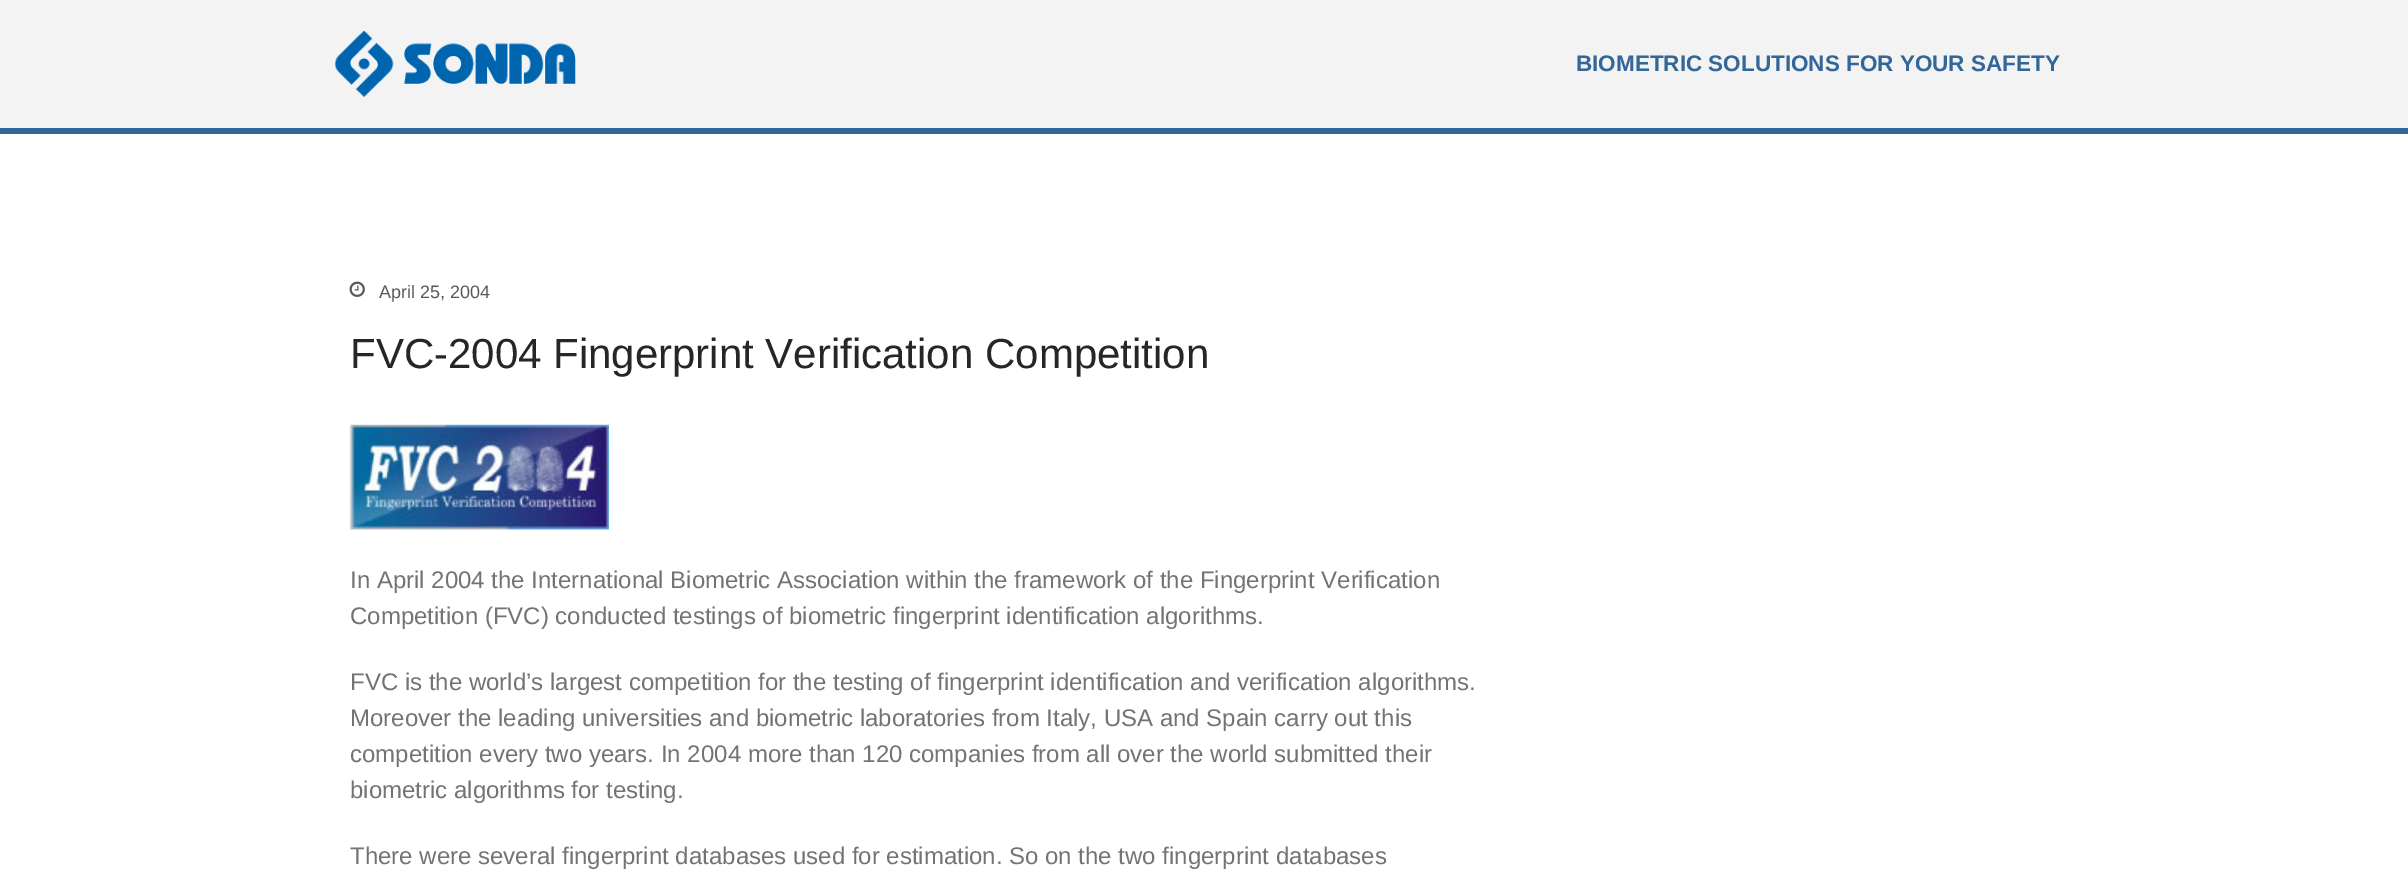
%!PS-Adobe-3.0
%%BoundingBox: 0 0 2408 881
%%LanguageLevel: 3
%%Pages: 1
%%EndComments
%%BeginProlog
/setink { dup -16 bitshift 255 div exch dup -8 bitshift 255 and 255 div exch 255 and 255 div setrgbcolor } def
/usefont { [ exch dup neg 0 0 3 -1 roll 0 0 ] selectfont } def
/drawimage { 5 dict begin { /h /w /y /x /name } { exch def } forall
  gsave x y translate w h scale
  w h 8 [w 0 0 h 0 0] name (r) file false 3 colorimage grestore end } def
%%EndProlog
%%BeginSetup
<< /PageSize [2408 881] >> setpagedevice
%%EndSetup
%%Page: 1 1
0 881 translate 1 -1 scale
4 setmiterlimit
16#FFFFFF setink
0 0 2408 881 rectfill
16#F3F3F3 setink
0 0 2408 128 rectfill
16#336699 setink
0 128 2408 6 rectfill
(img1.raw) 334 30 242 68 drawimage
/LiberationSans-Bold 22.5 usefont
1576 71 moveto (BIOMETRIC SOLUTIONS FOR YOUR SAFETY) show
(img2.raw) 349 281 16 16 drawimage
/LiberationSans-Regular 18 usefont
16#595959 setink
379 298 moveto (April 25, 2004) show
/LiberationSans-Regular 42 usefont
16#262626 setink
350 368 moveto (FVC-2004 Fingerprint Verification Competition) show
(img3.raw) 349 424 260 106 drawimage
/LiberationSans-Regular 24 usefont
16#737373 setink
[
    [(In April 2004 the International Biometric Association within the framework of the Fingerprint Verification) 350 588]
    [(Competition \(FVC\) conducted testings of biometric fingerprint identification algorithms.) 350 624]
    [(FVC is the world’s largest competition for the testing of fingerprint identification and verification algorithms.) 350 690]
    [(Moreover the leading universities and biometric laboratories from Italy, USA and Spain carry out this) 350 726]
    [(competition every two years. In 2004 more than 120 companies from all over the world submitted their) 350 762]
    [(biometric algorithms for testing.) 350 798]
    [(There were several fingerprint databases used for estimation. So on the two fingerprint databases) 350 864]
] { aload pop moveto show } forall
showpage
%%EOF
